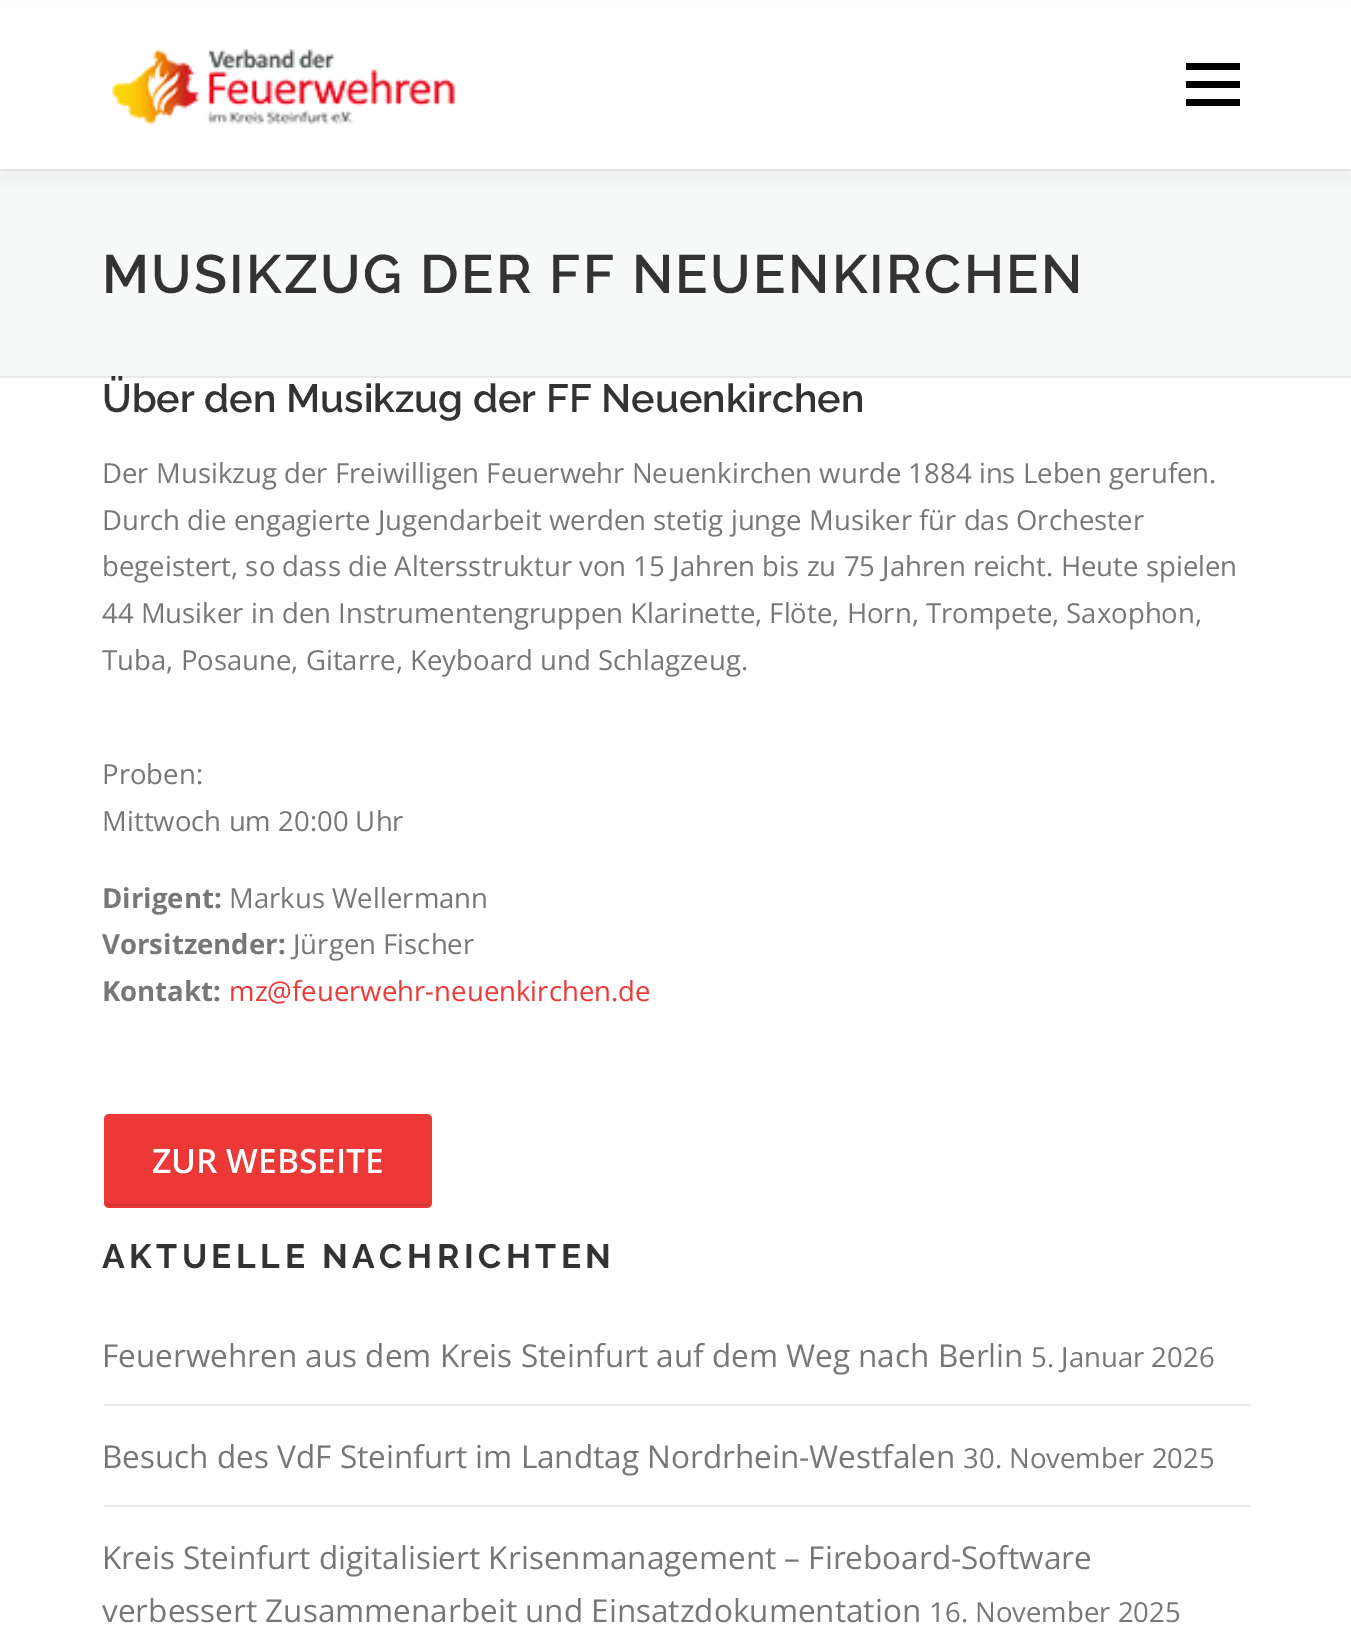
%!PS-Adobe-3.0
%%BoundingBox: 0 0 1351 1650
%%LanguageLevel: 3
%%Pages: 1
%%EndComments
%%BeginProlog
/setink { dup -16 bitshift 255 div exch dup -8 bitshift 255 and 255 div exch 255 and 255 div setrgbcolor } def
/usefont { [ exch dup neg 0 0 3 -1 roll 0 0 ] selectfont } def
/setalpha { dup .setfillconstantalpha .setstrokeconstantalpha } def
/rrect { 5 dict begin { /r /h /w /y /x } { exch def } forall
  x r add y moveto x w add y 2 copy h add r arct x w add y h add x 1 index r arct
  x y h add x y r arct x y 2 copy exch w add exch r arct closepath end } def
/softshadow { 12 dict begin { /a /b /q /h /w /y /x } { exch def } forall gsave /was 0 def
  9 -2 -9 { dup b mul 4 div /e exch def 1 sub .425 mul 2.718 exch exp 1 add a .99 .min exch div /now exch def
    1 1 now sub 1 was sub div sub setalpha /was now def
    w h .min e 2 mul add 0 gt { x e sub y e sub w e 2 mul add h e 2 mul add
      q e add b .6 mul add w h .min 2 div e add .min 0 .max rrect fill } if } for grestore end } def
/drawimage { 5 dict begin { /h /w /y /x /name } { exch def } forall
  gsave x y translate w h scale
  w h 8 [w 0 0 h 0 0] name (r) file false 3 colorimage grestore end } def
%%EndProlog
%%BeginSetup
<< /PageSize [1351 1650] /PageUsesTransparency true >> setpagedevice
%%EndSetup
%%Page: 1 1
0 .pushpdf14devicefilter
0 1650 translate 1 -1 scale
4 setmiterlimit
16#FFFFFF setink
0 0 1351 1650 rectfill
16#F8F9F9 setink
0 171 1351 205 rectfill
16#E9E9E9 setink
0 169 1351 2 rectfill
16#323232 setink
0 11 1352 169 0 11 0.06 softshadow
16#FFFFFF setink
0 2 1351 167 rectfill
(img1.raw) 112 49 344 76 drawimage
[
    [1186 81 54 7 16#000000]
    [1186 63 54 7 16#000000]
    [1186 99 54 7 16#000000]
    [0 376 1351 2 16#E9E9E9]
] { aload pop setink rectfill } forall
/Raleway-SemiBold 54 usefont
16#333333 setink
102 293 moveto 2.25 0 (MUSIKZUG DER FF NEUENKIRCHEN) ashow
/Raleway-SemiBold 39.4 usefont
102 412 moveto (Über den Musikzug der FF Neuenkirchen) show
/OpenSans-Regular 27.55 usefont
16#777777 setink
[
    [(Der Musikzug der Freiwilligen Feuerwehr Neuenkirchen wurde 1884 ins Leben gerufen.) 102 483]
    [(Durch die engagierte Jugendarbeit werden stetig junge Musiker für das Orchester) 102 530]
    [(begeistert, so dass die Altersstruktur von 15 Jahren bis zu 75 Jahren reicht. Heute spielen) 102 576]
    [(44 Musiker in den Instrumentengruppen Klarinette, Flöte, Horn, Trompete, Saxophon,) 102 623]
    [(Tuba, Posaune, Gitarre, Keyboard und Schlagzeug.) 102 670]
    [(Proben:) 102 784]
    [(Mittwoch um 20:00 Uhr) 102 831]
] { aload pop moveto show } forall
/OpenSans-Bold 27.55 usefont
102 908 moveto (Dirigent:) show
/OpenSans-Regular 27.55 usefont
229 908 moveto (Markus Wellermann) show
/OpenSans-Bold 27.55 usefont
102 954 moveto (Vorsitzender:) show
/OpenSans-Regular 27.55 usefont
293 954 moveto (Jürgen Fischer) show
/OpenSans-Bold 27.55 usefont
102 1001 moveto (Kontakt:) show
/OpenSans-Regular 27.55 usefont
16#EC3837 setink
229 1001 moveto (mz@feuerwehr-neuenkirchen.de) show
104 1114 328 94 5 rrect fill
16#D43232 setink
106 1202 moveto 106 1204 106 1206 108 1206 curveto 429 1206 lineto 430 1205 430 1203 430 1202 curveto 430 1203 429 1204 428 1204 curveto 108 1204 lineto 107 1204 106 1203 106 1202 curveto closepath fill
/OpenSans-SemiBold 33.5 usefont
16#FFFFFF setink
152 1173 moveto (ZUR WEBSEITE) show
/Raleway-Bold 33.75 usefont
16#333333 setink
102 1268 moveto 4.5 0 (AKTUELLE NACHRICHTEN) ashow
16#E9E9E9 setink
104 1404 1147 2 rectfill
/OpenSans-Regular 31.5 usefont
16#777777 setink
102 1367 moveto (Feuerwehren aus dem Kreis Steinfurt auf dem Weg nach Berlin) show
/OpenSans-Regular 27.55 usefont
1031 1367 moveto (5. Januar 2026) show
16#E9E9E9 setink
104 1505 1147 2 rectfill
/OpenSans-Regular 31.5 usefont
16#777777 setink
102 1468 moveto (Besuch des VdF Steinfurt im Landtag Nordrhein-Westfalen) show
/OpenSans-Regular 27.55 usefont
963 1468 moveto (30. November 2025) show
/OpenSans-Regular 31.5 usefont
102 1569 moveto (Kreis Steinfurt digitalisiert Krisenmanagement – Fireboard-Software) show
102 1622 moveto (verbessert Zusammenarbeit und Einsatzdokumentation) show
/OpenSans-Regular 27.55 usefont
929 1622 moveto (16. November 2025) show
.poppdf14devicefilter showpage
%%EOF
